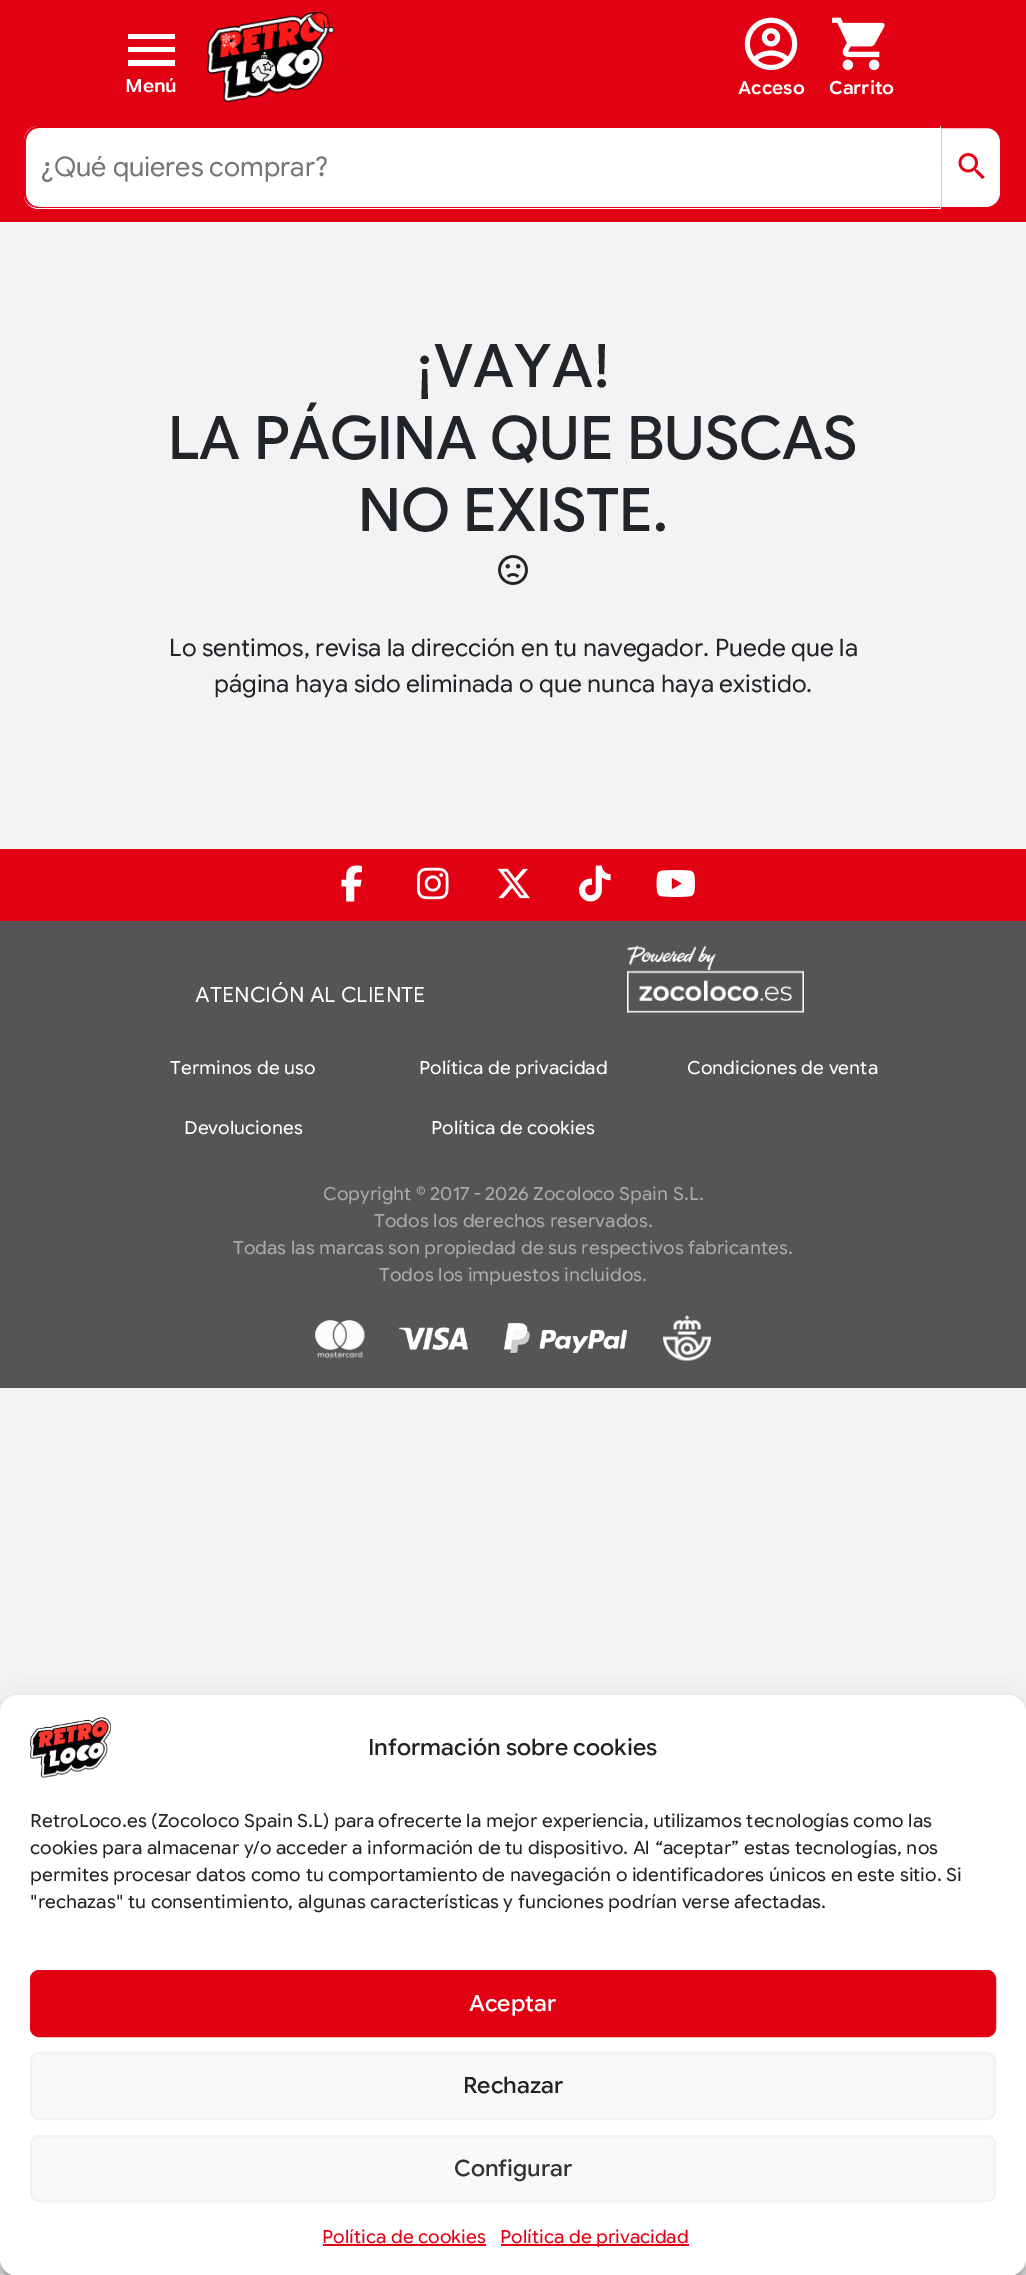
%!PS-Adobe-3.0
%%BoundingBox: 0 0 1026 2275
%%LanguageLevel: 3
%%Pages: 1
%%EndComments
%%BeginProlog
/setink { dup -16 bitshift 255 div exch dup -8 bitshift 255 and 255 div exch 255 and 255 div setrgbcolor } def
/usefont { [ exch dup neg 0 0 3 -1 roll 0 0 ] selectfont } def
/setalpha { dup .setfillconstantalpha .setstrokeconstantalpha } def
/rrect { 5 dict begin { /r /h /w /y /x } { exch def } forall
  x r add y moveto x w add y 2 copy h add r arct x w add y h add x 1 index r arct
  x y h add x y r arct x y 2 copy exch w add exch r arct closepath end } def
/softshadow { 12 dict begin { /a /b /q /h /w /y /x } { exch def } forall gsave /was 0 def
  9 -2 -9 { dup b mul 4 div /e exch def 1 sub .425 mul 2.718 exch exp 1 add a .99 .min exch div /now exch def
    1 1 now sub 1 was sub div sub setalpha /was now def
    w h .min e 2 mul add 0 gt { x e sub y e sub w e 2 mul add h e 2 mul add
      q e add b .6 mul add w h .min 2 div e add .min 0 .max rrect fill } if } for grestore end } def
/drawimage { 5 dict begin { /h /w /y /x /name } { exch def } forall
  gsave x y translate w h scale
  w h 8 [w 0 0 h 0 0] name (r) file false 3 colorimage grestore end } def
%%EndProlog
%%BeginSetup
<< /PageSize [1026 2275] /PageUsesTransparency true >> setpagedevice
%%EndSetup
%%Page: 1 1
0 .pushpdf14devicefilter
0 2275 translate 1 -1 scale
4 setmiterlimit
16#F3F3F3 setink
0 0 1026 2275 rectfill
16#E20013 setink
0 0 1026 222 rectfill
16#FFFFFF setink
128 34 moveto 175 34 lineto 175 39 lineto 128 39 lineto closepath 128 47 moveto 175 47 lineto 175 52 lineto 128 52 lineto closepath 128 60 moveto 175 60 lineto 175 66 lineto 128 66 lineto closepath fill
/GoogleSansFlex-SemiBold 18 usefont
125 92 moveto (Menú) show
(img1.raw) 207 12 128 90 drawimage
(img2.raw) 744 17 54 54 drawimage
738 94 moveto (Acceso) show
(img3.raw) 832 17 53 54 drawimage
829 94 moveto (Carrito) show
940 127 moveto 987 127 lineto 994.5 127 1001 133.5 1001 141 curveto 1001 194 lineto 1001 201.5 994.5 208 987 208 curveto 940 208 lineto closepath gsave fill grestore
16#E20013 setink
2 setlinewidth
stroke
16#FFFFFF setink
39 126 moveto 941 126 lineto 941 209 lineto 39 209 lineto 30.5 209 24 202.5 24 194 curveto 24 141 lineto 24 132.5 30.5 126 39 126 curveto closepath fill
16#E20013 setink
39 126 moveto 940 126 lineto 940 208 lineto 39 208 lineto 31 208 24 202 24 194 curveto 24 141 lineto 24 133 31 126 39 126 curveto closepath 39 128 moveto 940 128 lineto 940 207 lineto 39 207 lineto 32 207 26 201 26 194 curveto 26 141 lineto 26 134 32 128 39 128 curveto closepath eofill
/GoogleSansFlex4-Regular 27 usefont
16#757575 setink
41 176 moveto (¿Qué quieres comprar?) show
(img4.raw) 958 153 27 27 drawimage
/GoogleSansFlex-Medium 60 usefont
16#212529 setink
[
    [(¡VAYA!) 415 387]
    [(LA PÁGINA QUE BUSCAS) 168 459]
    [(NO EXISTE.) 358 531]
] { aload pop moveto show } forall
(img5.raw) 498 555 30 30 drawimage
/GoogleSansFlex-Regular 24 usefont
169 656 moveto (Lo sentimos, revisa la dirección en tu navegador. Puede que la) show
214 692 moveto (página haya sido eliminada o que nunca haya existido.) show
16#555555 setink
0 921 1026 467 rectfill
16#E20013 setink
0 849 1026 72 rectfill
(img6.raw) 341 865 21 37 drawimage
(img7.raw) 417 867 32 33 drawimage
(img8.raw) 497 868 33 31 drawimage
(img9.raw) 579 865 32 37 drawimage
(img10.raw) 656 870 39 27 drawimage
/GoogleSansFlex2-Regular 21 usefont
16#FFFFFF setink
195 1002 moveto (ATENCIÓN AL CLIENTE) show
(img11.raw) 627 945 177 68 drawimage
/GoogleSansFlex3-Regular 18 usefont
[
    [(Terminos de uso) 170 1074]
    [(Política de privacidad) 419 1074]
    [(Condiciones de venta) 687 1074]
    [(Devoluciones) 184 1134]
    [(Política de cookies) 431 1134]
] { aload pop moveto show } forall
16#AAAAAA setink
[
    [(Copyright © 2017 - 2026 Zocoloco Spain S.L.) 323 1200]
    [(Todos los derechos reservados.) 374 1227]
    [(Todas las marcas son propiedad de sus respectivos fabricantes.) 233 1254]
    [(Todos los impuestos incluidos.) 379 1281]
] { aload pop moveto show } forall
(img12.raw) 315 1320 50 38 drawimage
(img13.raw) 399 1327 69 23 drawimage
(img14.raw) 504 1323 123 30 drawimage
(img15.raw) 663 1315 48 46 drawimage
16#000000 setink
0 1704 1026 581 18 4.5 0.23 softshadow
0 1710 1026 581 18 15 0.19 softshadow
16#FFFFFF setink
0 1695 1026 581 18 rrect fill
(img16.raw) 30 1717 81 61 drawimage
/GoogleSansFlex2-Medium 22.5 usefont
16#222222 setink
368 1755 moveto (Información sobre cookies) show
/GoogleSansFlex3-Regular 18 usefont
[
    [(RetroLoco.es \(Zocoloco Spain S.L\) para ofrecerte la mejor experiencia, utilizamos tecnologías como las) 30 1827]
    [(cookies para almacenar y/o acceder a información de tu dispositivo. Al “aceptar” estas tecnologías, nos) 30 1854]
    [(permites procesar datos como tu comportamiento de navegación o identificadores únicos en este sitio. Si) 30 1881]
    [("rechazas" tu consentimiento, algunas características y funciones podrían verse afectadas.) 30 1908]
] { aload pop moveto show } forall
16#E20013 setink
31 1971 964 65 8 rrect gsave fill grestore
stroke
/GoogleSansFlex2-Medium 22.5 usefont
16#FFFFFF setink
469 2011 moveto (Aceptar) show
16#F9F9F9 setink
31 2053 964 66 8 rrect gsave fill grestore
16#F2F2F2 setink
stroke
16#222222 setink
463 2093 moveto (Rechazar) show
16#F9F9F9 setink
31 2136 964 65 8 rrect gsave fill grestore
16#F2F2F2 setink
stroke
16#333333 setink
454 2176 moveto (Configurar) show
/GoogleSansFlex3-Regular 18 usefont
16#E20013 setink
322 2243 moveto (Política de cookies) show
323 2244 163 2 rectfill
501 2244 188 2 rectfill
500 2243 moveto (Política de privacidad) show
.poppdf14devicefilter showpage
%%EOF
